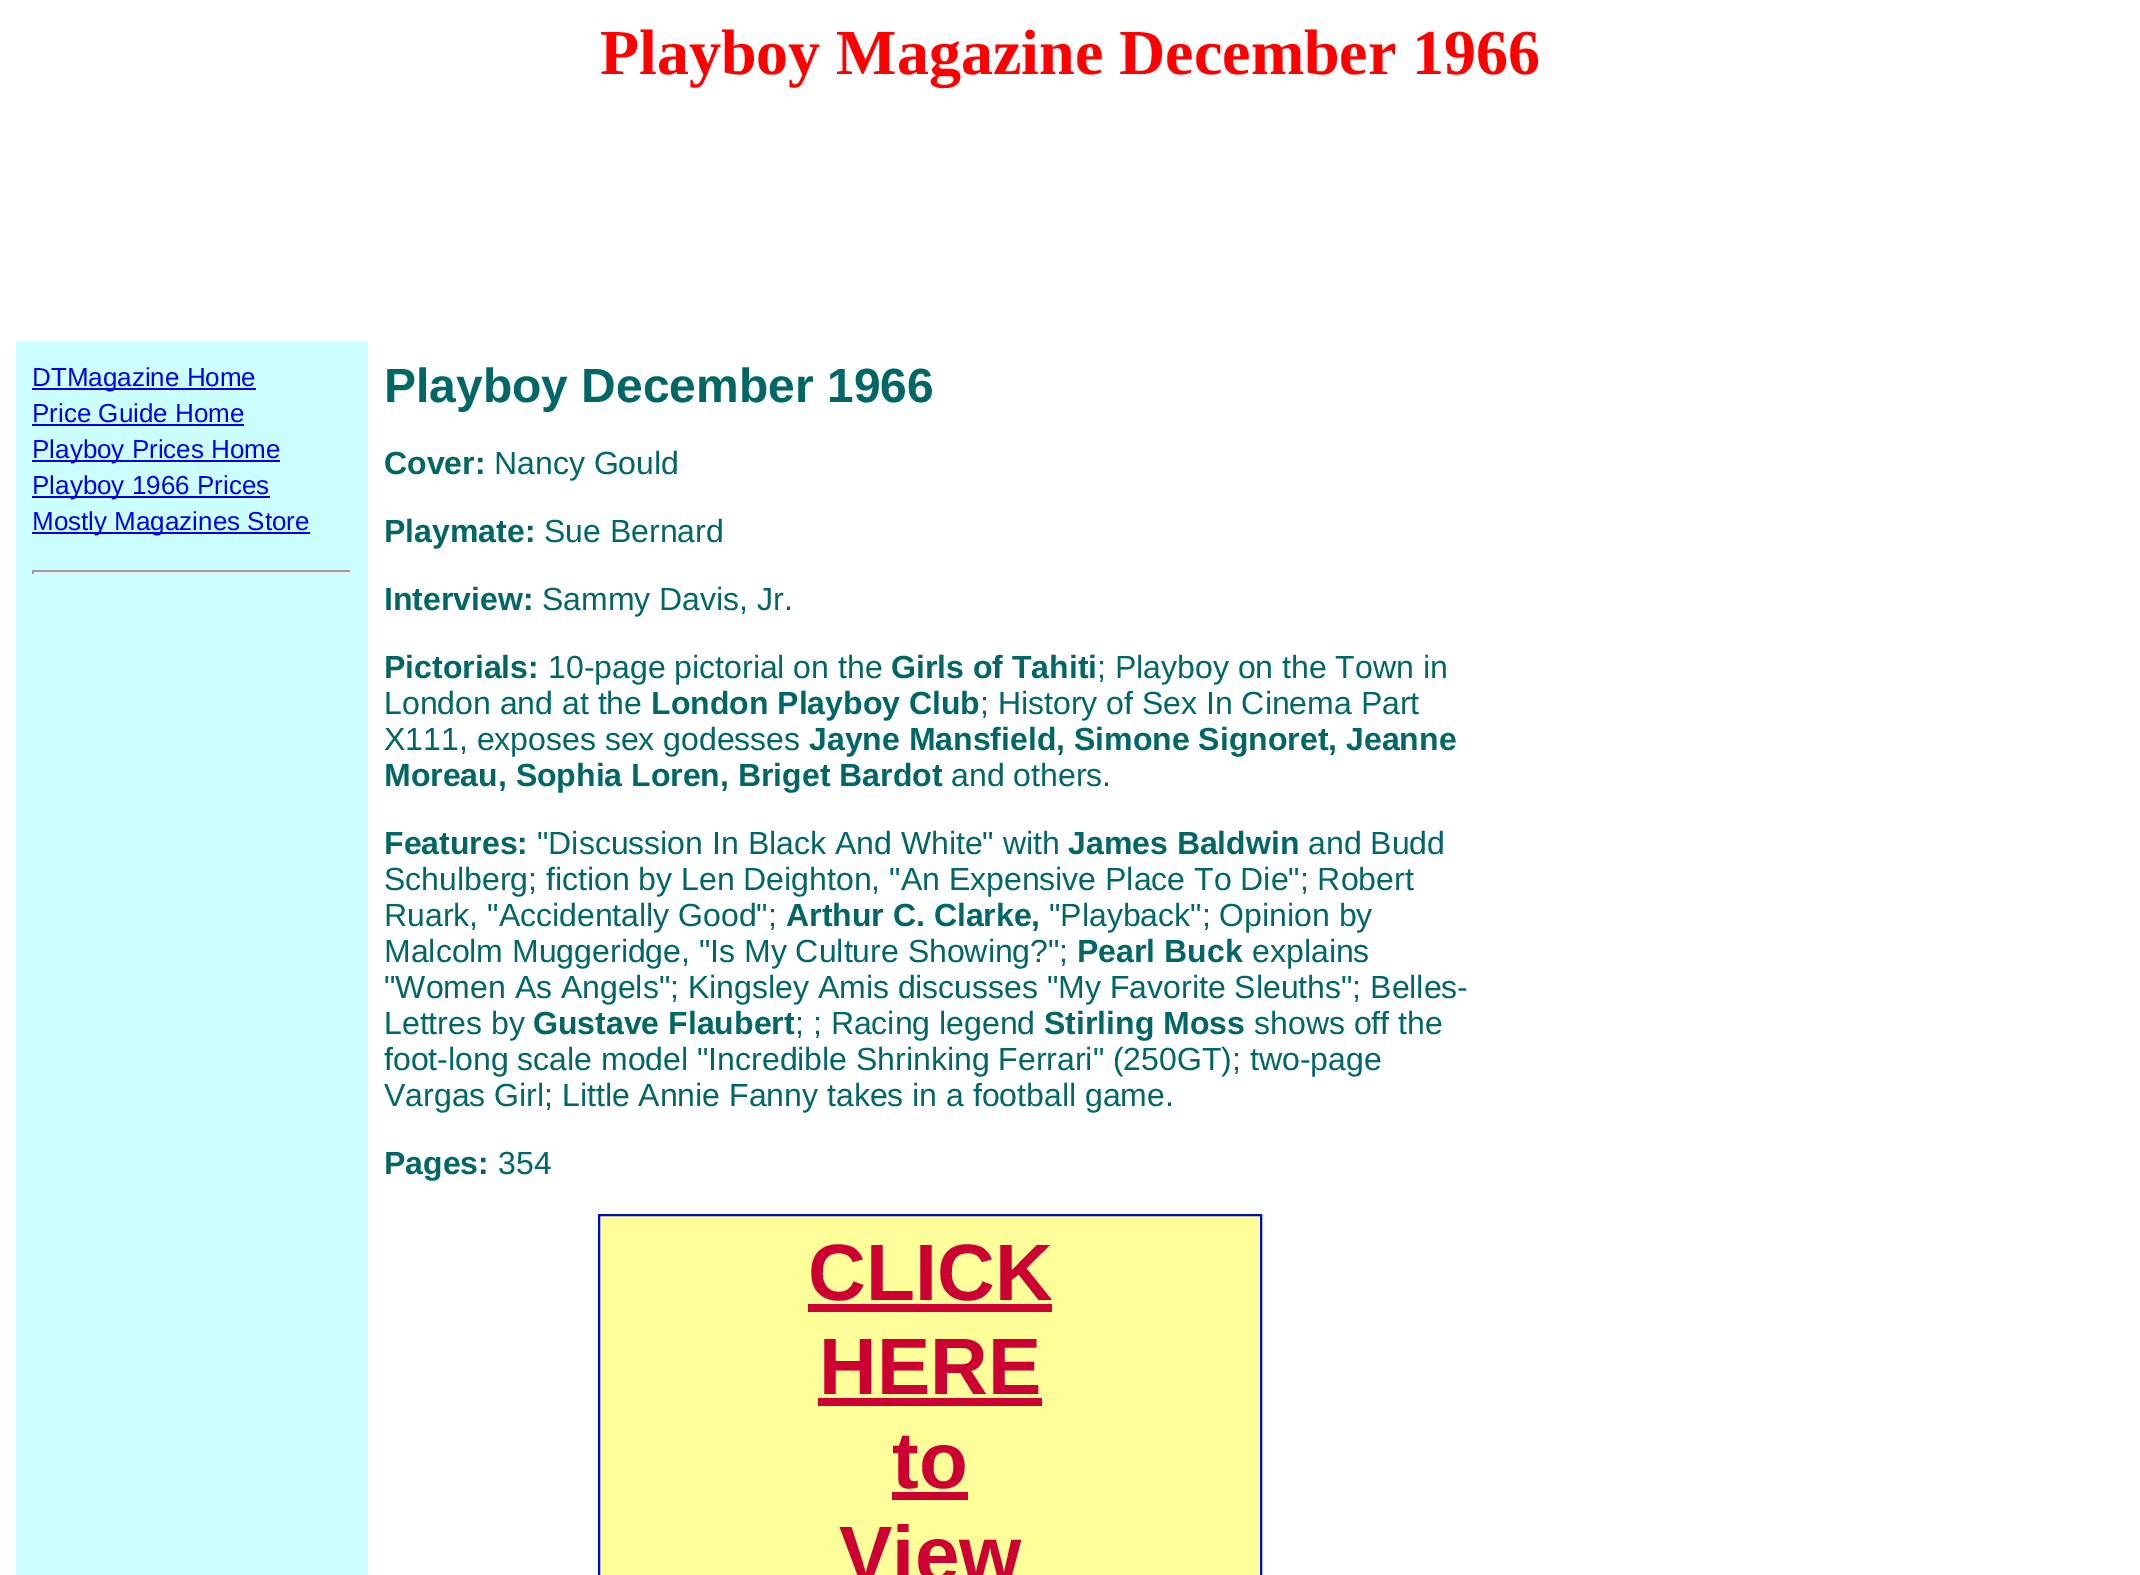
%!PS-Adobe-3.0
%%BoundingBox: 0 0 2140 1575
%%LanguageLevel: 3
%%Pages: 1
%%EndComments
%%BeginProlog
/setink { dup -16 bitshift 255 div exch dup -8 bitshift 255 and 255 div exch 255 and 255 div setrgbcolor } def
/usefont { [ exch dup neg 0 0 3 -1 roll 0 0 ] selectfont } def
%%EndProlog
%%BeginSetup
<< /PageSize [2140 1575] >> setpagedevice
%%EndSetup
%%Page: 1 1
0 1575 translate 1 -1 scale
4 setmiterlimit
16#FFFFFF setink
0 0 2140 1575 rectfill
/LiberationSerif-Bold 64 usefont
16#FF0000 setink
600 74 moveto (Playboy Magazine December 1966) show
16#CCFFFF setink
16 342 352 1233 rectfill
16#0000EE setink
32 388 224 2 rectfill
/LiberationSans-Regular 26 usefont
32 386 moveto (DTMagazine Home) show
32 422 moveto (Price Guide Home) show
32 424 212 2 rectfill
32 460 248 2 rectfill
32 458 moveto (Playboy Prices Home) show
32 496 238 2 rectfill
32 494 moveto (Playboy 1966 Prices) show
32 532 278 2 rectfill
32 530 moveto (Mostly Magazines Store) show
[
    [32 570 320 2 16#9F9F9F]
    [350 570 2 4 16#EEEEEE]
    [32 572 320 2 16#EEEEEE]
    [32 570 2 4 16#9F9F9F]
] { aload pop setink rectfill } forall
/LiberationSans-Bold 48 usefont
16#006666 setink
384 402 moveto (Playboy December 1966) show
/LiberationSans-Bold 32 usefont
384 474 moveto (Cover:) show
/LiberationSans-Regular 32 usefont
494 474 moveto (Nancy Gould) show
/LiberationSans-Bold 32 usefont
384 542 moveto (Playmate:) show
/LiberationSans-Regular 32 usefont
544 542 moveto (Sue Bernard) show
/LiberationSans-Bold 32 usefont
384 610 moveto (Interview:) show
/LiberationSans-Regular 32 usefont
542 610 moveto (Sammy Davis, Jr.) show
/LiberationSans-Bold 32 usefont
384 678 moveto (Pictorials:) show
/LiberationSans-Regular 32 usefont
548 678 moveto (10-page pictorial on the) show
/LiberationSans-Bold 32 usefont
891 678 moveto (Girls of Tahiti) show
/LiberationSans-Regular 32 usefont
1097 678 moveto (; Playboy on the Town in) show
384 714 moveto (London and at the) show
/LiberationSans-Bold 32 usefont
651 714 moveto (London Playboy Club) show
/LiberationSans-Regular 32 usefont
980 714 moveto (; History of Sex In Cinema Part) show
384 750 moveto (X111, exposes sex godesses) show
/LiberationSans-Bold 32 usefont
809 750 moveto (Jayne Mansfield, Simone Signoret, Jeanne) show
384 786 moveto (Moreau, Sophia Loren, Briget Bardot) show
/LiberationSans-Regular 32 usefont
951 786 moveto (and others.) show
/LiberationSans-Bold 32 usefont
384 854 moveto (Features:) show
/LiberationSans-Regular 32 usefont
537 854 moveto ("Discussion In Black And White" with) show
/LiberationSans-Bold 32 usefont
1068 854 moveto (James Baldwin) show
/LiberationSans-Regular 32 usefont
[
    [(and Budd) 1308 854]
    [(Schulberg; fiction by Len Deighton, "An Expensive Place To Die"; Robert) 384 890]
    [(Ruark, "Accidentally Good";) 384 926]
] { aload pop moveto show } forall
/LiberationSans-Bold 32 usefont
786 926 moveto (Arthur C. Clarke,) show
/LiberationSans-Regular 32 usefont
1049 926 moveto ("Playback"; Opinion by) show
384 962 moveto (Malcolm Muggeridge, "Is My Culture Showing?";) show
/LiberationSans-Bold 32 usefont
1077 962 moveto (Pearl Buck) show
/LiberationSans-Regular 32 usefont
[
    [(explains) 1252 962]
    [("Women As Angels"; Kingsley Amis discusses "My Favorite Sleuths"; Belles-) 384 998]
    [(Lettres by) 384 1034]
] { aload pop moveto show } forall
/LiberationSans-Bold 32 usefont
533 1034 moveto (Gustave Flaubert) show
/LiberationSans-Regular 32 usefont
795 1034 moveto (; ; Racing legend) show
/LiberationSans-Bold 32 usefont
1044 1034 moveto (Stirling Moss) show
/LiberationSans-Regular 32 usefont
[
    [(shows off the) 1254 1034]
    [(foot-long scale model "Incredible Shrinking Ferrari" \(250GT\); two-page) 384 1070]
    [(Vargas Girl; Little Annie Fanny takes in a football game.) 384 1106]
] { aload pop moveto show } forall
/LiberationSans-Bold 32 usefont
384 1174 moveto (Pages:) show
/LiberationSans-Regular 32 usefont
498 1174 moveto (354) show
16#FFFF99 setink
599 1215 moveto 1261 1215 lineto 1261 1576 lineto 599 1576 lineto closepath gsave fill grestore
16#000CCC setink
2 setlinewidth
stroke
/LiberationSans-Bold 80 usefont
16#CC0033 setink
808 1300 moveto (CLICK) show
808 1304 244 8 rectfill
819 1394 moveto (HERE) show
818 1398 224 8 rectfill
892 1488 moveto (to) show
892 1492 76 8 rectfill
839 1582 moveto (View) show
showpage
%%EOF
